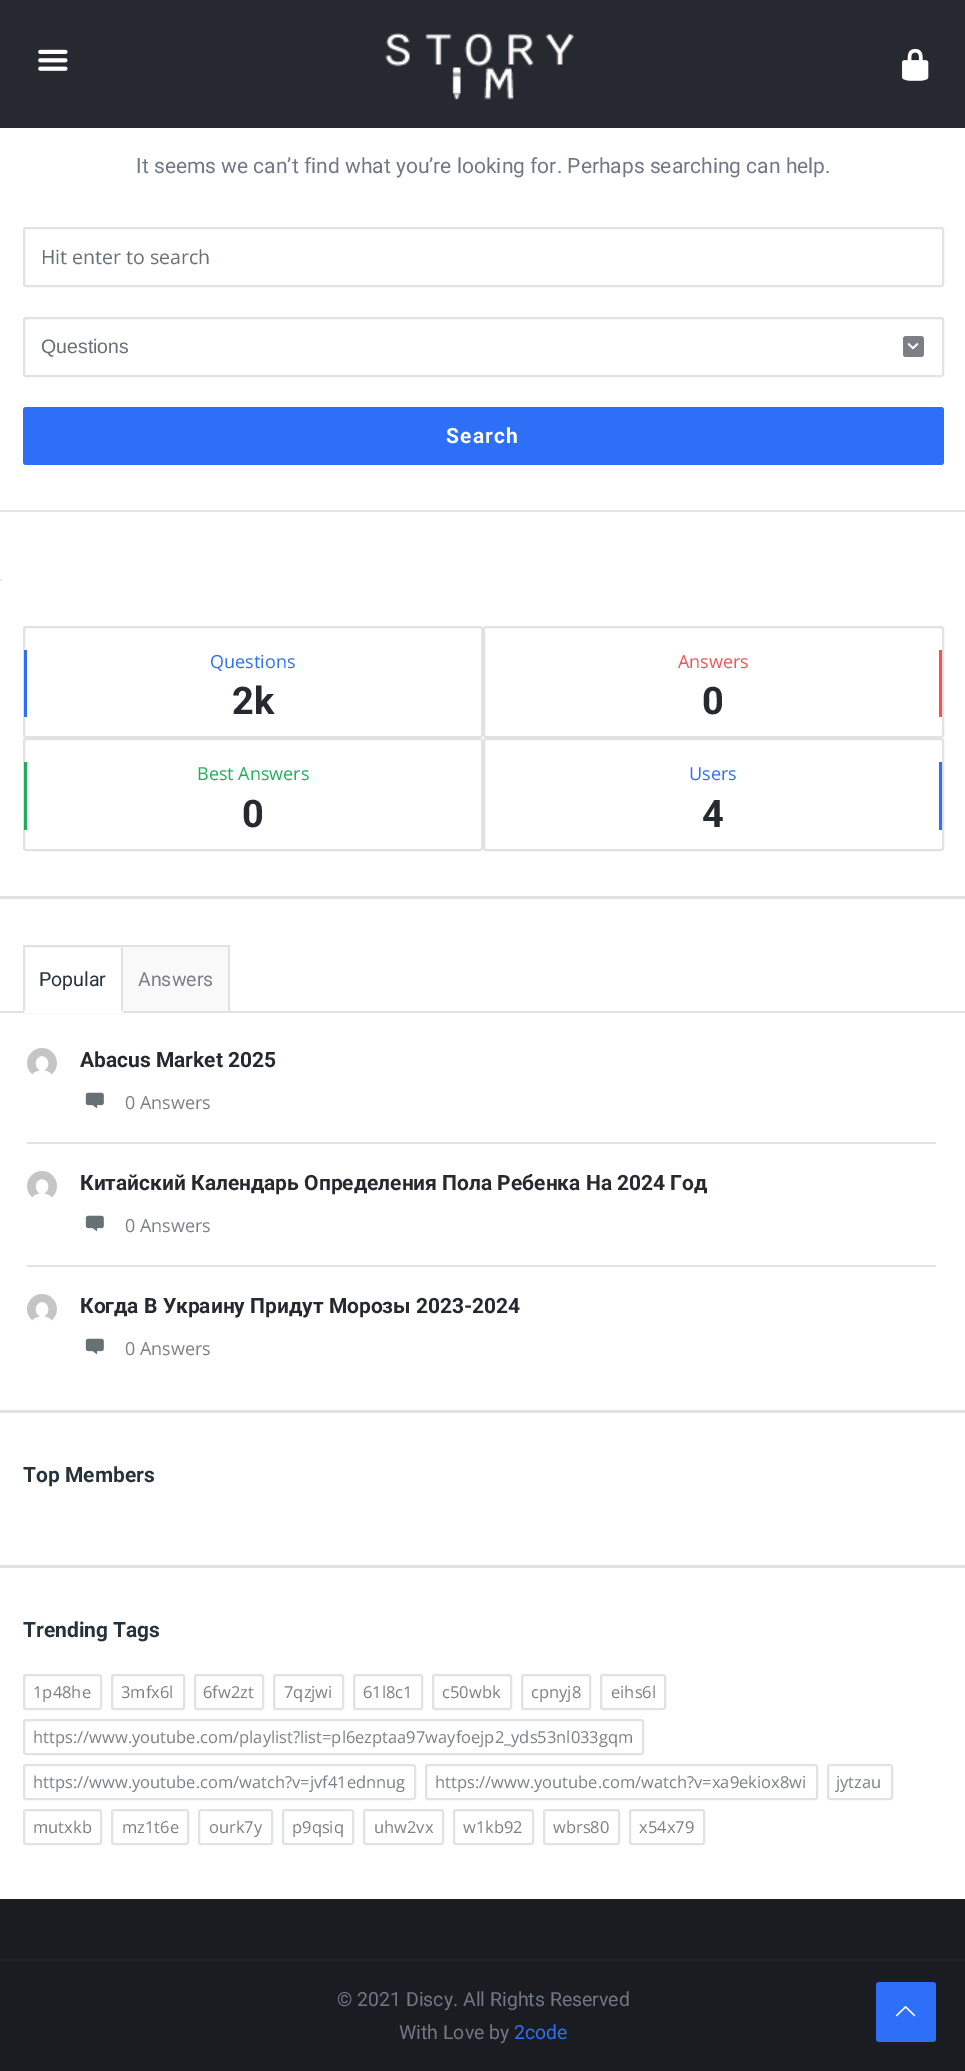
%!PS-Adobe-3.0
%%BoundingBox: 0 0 965 2071
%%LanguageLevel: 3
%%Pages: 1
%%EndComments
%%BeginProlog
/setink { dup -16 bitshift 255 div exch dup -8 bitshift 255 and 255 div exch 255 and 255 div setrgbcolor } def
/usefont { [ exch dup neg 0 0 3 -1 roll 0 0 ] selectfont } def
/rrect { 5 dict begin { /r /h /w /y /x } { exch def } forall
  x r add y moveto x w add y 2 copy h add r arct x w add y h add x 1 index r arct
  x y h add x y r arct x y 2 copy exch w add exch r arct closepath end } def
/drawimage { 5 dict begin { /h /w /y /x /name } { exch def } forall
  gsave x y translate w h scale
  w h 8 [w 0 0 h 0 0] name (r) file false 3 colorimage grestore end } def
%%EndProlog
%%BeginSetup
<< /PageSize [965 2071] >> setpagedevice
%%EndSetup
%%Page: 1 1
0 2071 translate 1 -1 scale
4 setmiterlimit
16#1A1C21 setink
0 0 965 2071 rectfill
16#272930 setink
0 0 965 128 rectfill
(img1.raw) 38 49 30 22 drawimage
(img2.raw) 385 32 190 68 drawimage
(img3.raw) 902 48 27 33 drawimage
16#FFFFFF setink
0 128 965 451 rectfill
/Roboto-Regular 21 usefont
16#707885 setink
136 173 moveto (It seems we can’t find what you’re looking for. Perhaps searching can help.) show
16#E4E6E6 setink
0 510 965 2 rectfill
16#E1E3E3 setink
2 setlinewidth
24 228 919 58 2 rrect stroke
/OpenSans-Regular 19.5 usefont
16#677075 setink
41 264 moveto (Hit enter to search) show
16#E1E3E3 setink
24 318 919 58 2 rrect stroke
/LiberationSans-Regular 19.5 usefont
16#677075 setink
41 353 moveto (Questions) show
16#7C7F85 setink
903 336 21 21 3 rrect fill
(img4.raw) 907 343 12 7 drawimage
16#2D6FF7 setink
23 407 921 58 3 rrect fill
/Roboto-Bold 21 usefont
16#FFFFFF setink
446 443 moveto 1.25 0 (Search) ashow
[
    [2 579 963 2 16#FFFFFF]
    [0 579 2 2 16#E4E5E6]
    [0 581 965 1318 16#FFFFFF]
    [0 896 965 3 16#E1E3E3]
] { aload pop setink rectfill } forall
24 627 458 110 2 rrect stroke
16#2D6FF7 setink
24 650 3 67 rectfill
/OpenSans-Regular 18 usefont
210 668 moveto (Questions) show
/Roboto-Bold 38 usefont
16#272930 setink
232 714 moveto (2k) show
16#E1E3E3 setink
484 627 459 110 2 rrect stroke
/OpenSans-Regular 18 usefont
16#F05555 setink
678 668 moveto (Answers) show
/Roboto-Bold 38 usefont
16#272930 setink
702 714 moveto (0) show
16#F05555 setink
939 650 3 67 rectfill
16#E1E3E3 setink
24 739 458 111 2 rrect stroke
16#1FAE5B setink
24 762 3 68 rectfill
/OpenSans-Regular 18 usefont
197 780 moveto (Best Answers) show
/Roboto-Bold 38 usefont
16#272930 setink
242 827 moveto (0) show
16#E1E3E3 setink
484 739 459 111 2 rrect stroke
/OpenSans-Regular 18 usefont
16#2D6FF7 setink
689 780 moveto (Users) show
/Roboto-Bold 38 usefont
16#272930 setink
702 827 moveto (4) show
[
    [939 762 3 68 16#2D6FF7]
    [0 1410 965 3 16#E1E3E3]
    [0 1011 965 2 16#E1E3E3]
] { aload pop setink rectfill } forall
24 946 98 66 rectstroke
/Roboto-Regular 19.5 usefont
16#26333B setink
39 986 moveto (Popular) show
[
    [24 1011 99 2 16#FFFFFF]
    [123 947 105 64 16#F9F9F9]
    [123 945 107 2 16#E1E3E3]
    [228 945 2 68 16#E1E3E3]
] { aload pop setink rectfill } forall
16#7C7F85 setink
138 986 moveto (Answers) show
16#E1E3E3 setink
27 1142 909 2 rectfill
(img5.raw) 27 1048 30 27 drawimage
/Roboto-Bold 21 usefont
16#272930 setink
80 1067 moveto (Abacus Market 2025) show
(img6.raw) 85 1092 19 17 drawimage
/OpenSans-Regular 18 usefont
16#7C7F85 setink
125 1109 moveto (0 Answers) show
16#E1E3E3 setink
27 1265 909 2 rectfill
(img5.raw) 27 1171 30 27 drawimage
/Roboto-Bold 21 usefont
16#272930 setink
80 1190 moveto (Китайский Календарь Определения Пола Ребенка На 2024 Год) show
(img6.raw) 85 1215 19 17 drawimage
/OpenSans-Regular 18 usefont
16#7C7F85 setink
125 1232 moveto (0 Answers) show
(img5.raw) 27 1294 30 27 drawimage
/Roboto-Bold 21 usefont
16#272930 setink
80 1313 moveto (Когда В Украину Придут Морозы 2023-2024) show
(img6.raw) 85 1338 19 17 drawimage
/OpenSans-Regular 18 usefont
16#7C7F85 setink
125 1355 moveto (0 Answers) show
16#E1E3E3 setink
0 1565 965 3 rectfill
/Roboto-Bold 21 usefont
16#26333B setink
23 1482 moveto (Top Members) show
23 1637 moveto (Trending Tags) show
16#E1E3E3 setink
24 1675 77 34 2 rrect stroke
/OpenSans-Regular 16.5 usefont
16#7C7F85 setink
33 1698 moveto (1p48he) show
16#E1E3E3 setink
112 1675 72 34 2 rrect stroke
16#7C7F85 setink
121 1698 moveto (3mfx6l) show
16#E1E3E3 setink
195 1675 68 34 2 rrect stroke
16#7C7F85 setink
203 1698 moveto (6fw2zt) show
16#E1E3E3 setink
274 1675 69 34 2 rrect stroke
16#7C7F85 setink
284 1698 moveto (7qzjwi) show
16#E1E3E3 setink
354 1675 68 34 2 rrect stroke
16#7C7F85 setink
363 1698 moveto (61l8c1) show
16#E1E3E3 setink
433 1675 78 34 2 rrect stroke
16#7C7F85 setink
442 1698 moveto (c50wbk) show
16#E1E3E3 setink
522 1675 68 34 2 rrect stroke
16#7C7F85 setink
531 1698 moveto (cpnyj8) show
16#E1E3E3 setink
601 1675 64 34 2 rrect stroke
16#7C7F85 setink
611 1698 moveto (eihs6l) show
16#E1E3E3 setink
24 1720 619 34 2 rrect stroke
16#7C7F85 setink
33 1743 moveto (https://www.youtube.com/playlist?list=pl6ezptaa97wayfoejp2_yds53nl033gqm) show
16#E1E3E3 setink
24 1765 391 34 2 rrect stroke
16#7C7F85 setink
33 1788 moveto (https://www.youtube.com/watch?v=jvf41ednnug) show
16#E1E3E3 setink
426 1765 391 34 2 rrect stroke
16#7C7F85 setink
435 1788 moveto (https://www.youtube.com/watch?v=xa9ekiox8wi) show
16#E1E3E3 setink
828 1765 64 34 2 rrect stroke
16#7C7F85 setink
836 1788 moveto (jytzau) show
16#E1E3E3 setink
24 1810 77 34 2 rrect stroke
16#7C7F85 setink
33 1833 moveto (mutxkb) show
16#E1E3E3 setink
112 1810 76 34 2 rrect stroke
16#7C7F85 setink
122 1833 moveto (mz1t6e) show
16#E1E3E3 setink
199 1810 73 34 2 rrect stroke
16#7C7F85 setink
209 1833 moveto (ourk7y) show
16#E1E3E3 setink
283 1810 70 34 2 rrect stroke
16#7C7F85 setink
292 1833 moveto (p9qsiq) show
16#E1E3E3 setink
364 1810 79 34 2 rrect stroke
16#7C7F85 setink
374 1833 moveto (uhw2vx) show
16#E1E3E3 setink
454 1810 79 34 2 rrect stroke
16#7C7F85 setink
463 1833 moveto (w1kb92) show
16#E1E3E3 setink
544 1810 75 34 2 rrect stroke
16#7C7F85 setink
553 1833 moveto (wbrs80) show
16#E1E3E3 setink
630 1810 74 34 2 rrect stroke
16#7C7F85 setink
639 1833 moveto (x54x79) show
16#212328 setink
0 1959 965 2 rectfill
/Roboto-Regular 19.5 usefont
16#707885 setink
337 2006 moveto (© 2021 Discy. All Rights Reserved) show
399 2039 moveto (With Love by) show
16#2D6FF7 setink
514 2039 moveto (2code) show
876 1982 60 60 3 rrect fill
(img7.raw) 895 2005 21 12 drawimage
showpage
%%EOF
